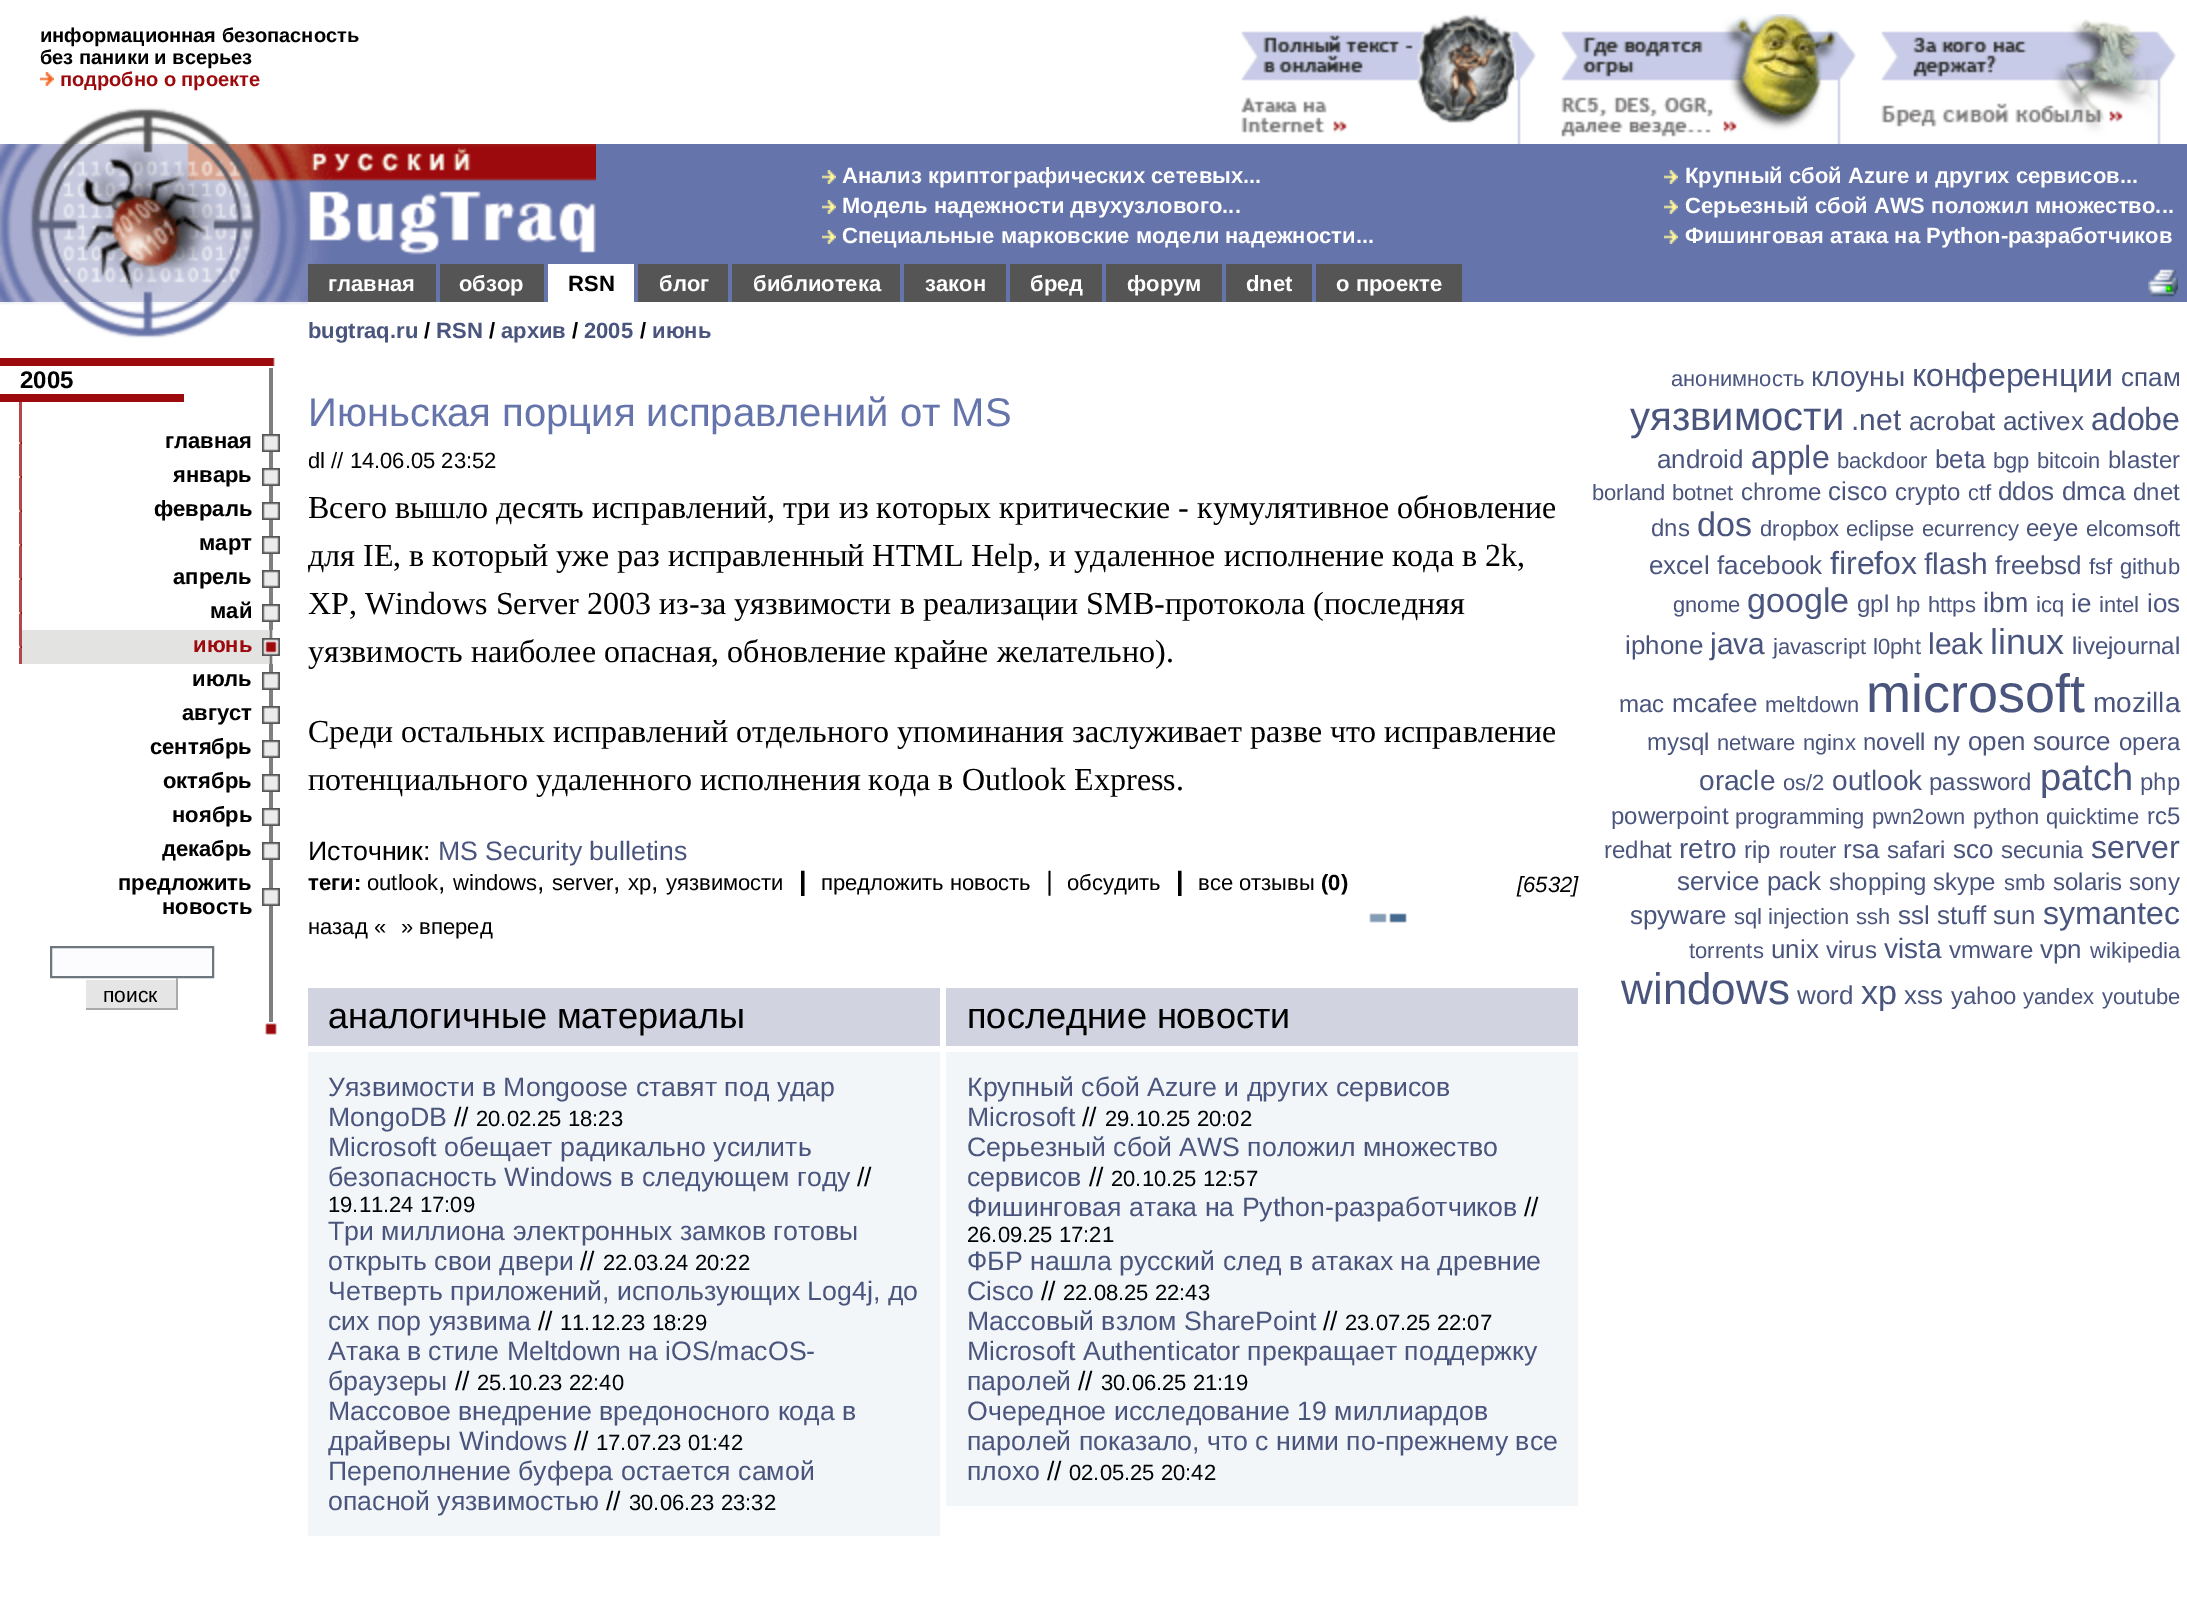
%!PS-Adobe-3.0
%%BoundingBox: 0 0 2187 1609
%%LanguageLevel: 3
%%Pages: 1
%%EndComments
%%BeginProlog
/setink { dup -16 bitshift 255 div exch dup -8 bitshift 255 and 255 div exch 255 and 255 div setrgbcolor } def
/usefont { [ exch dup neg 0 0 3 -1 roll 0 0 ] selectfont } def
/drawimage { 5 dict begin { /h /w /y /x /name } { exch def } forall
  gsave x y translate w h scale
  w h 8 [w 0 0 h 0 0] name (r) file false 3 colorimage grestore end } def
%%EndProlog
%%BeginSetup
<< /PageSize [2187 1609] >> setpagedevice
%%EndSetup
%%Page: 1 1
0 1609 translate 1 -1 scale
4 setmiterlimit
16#FFFFFF setink
0 0 2187 1609 rectfill
/LiberationSans-Bold 20 usefont
16#000000 setink
40 42 moveto (информационная безопасность) show
40 64 moveto (без паники и всерьез) show
(img1.raw) 40 72 14 14 drawimage
16#9C0A0E setink
60 86 moveto (подробно о проекте) show
(img2.raw) 1241 14 296 130 drawimage
(img3.raw) 1561 14 296 130 drawimage
(img4.raw) 1881 19 296 125 drawimage
(img5.raw) 61 107 170 37 drawimage
16#6574AB setink
596 144 1591 120 rectfill
(img6.raw) 0 144 308 158 drawimage
(img7.raw) 0 302 308 37 drawimage
(img8.raw) 308 144 288 120 drawimage
(img9.raw) 822 170 14 14 drawimage
/LiberationSans-Bold 22 usefont
16#FFFFFF setink
842 183 moveto (Анализ криптографических сетевых...) show
(img9.raw) 822 200 14 14 drawimage
842 213 moveto (Модель надежности двухузлового...) show
(img9.raw) 822 230 14 14 drawimage
842 243 moveto (Специальные марковские модели надежности...) show
(img9.raw) 1664 170 14 14 drawimage
1685 183 moveto (Крупный сбой Azure и других сервисов...) show
(img9.raw) 1664 200 14 14 drawimage
1685 213 moveto (Серьезный сбой AWS положил множество...) show
(img9.raw) 1664 230 14 14 drawimage
1685 243 moveto (Фишинговая атака на Python-разработчиков) show
16#6574AB setink
436 264 1751 38 rectfill
16#555555 setink
308 264 128 38 rectfill
16#FFFFFF setink
328 291 moveto (главная) show
16#555555 setink
440 264 104 38 rectfill
16#FFFFFF setink
459 291 moveto (обзор) show
548 264 86 38 rectfill
16#000000 setink
568 291 moveto (RSN) show
16#555555 setink
638 264 90 38 rectfill
16#FFFFFF setink
659 291 moveto (блог) show
16#555555 setink
732 264 168 38 rectfill
16#FFFFFF setink
753 291 moveto (библиотека) show
16#555555 setink
904 264 102 38 rectfill
16#FFFFFF setink
925 291 moveto (закон) show
16#555555 setink
1010 264 92 38 rectfill
16#FFFFFF setink
1030 291 moveto (бред) show
16#555555 setink
1106 264 116 38 rectfill
16#FFFFFF setink
1127 291 moveto (форум) show
16#555555 setink
1226 264 86 38 rectfill
16#FFFFFF setink
1246 291 moveto (dnet) show
16#555555 setink
1316 264 146 38 rectfill
16#FFFFFF setink
1336 291 moveto (о проекте) show
(img10.raw) 2148 269 30 28 drawimage
16#4A557E setink
308 338 moveto (bugtraq.ru) show
16#000000 setink
424 338 moveto (/) show
16#4A557E setink
436 338 moveto (RSN) show
16#000000 setink
489 338 moveto (/) show
16#4A557E setink
501 338 moveto (архив) show
16#000000 setink
572 338 moveto (/) show
16#4A557E setink
584 338 moveto (2005) show
16#000000 setink
640 338 moveto (/) show
16#4A557E setink
652 338 moveto (июнь) show
16#9C0A0E setink
0 358 280 8 rectfill
(img11.raw) 273 358 7 8 drawimage
/LiberationSans-Bold 24 usefont
16#000000 setink
20 388 moveto (2005) show
[
    [269 366 4 264 16#7F7F7F]
    [269 366 4 2 16#FFFFFF]
    [0 394 184 8 16#9C0A0E]
    [19 402 3 262 16#B4474A]
] { aload pop setink rectfill } forall
(img12.raw) 19 442 3 2 drawimage
/LiberationSans-Bold 22 usefont
16#000000 setink
165 448 moveto (главная) show
(img13.raw) 262 434 18 18 drawimage
(img12.raw) 19 476 3 2 drawimage
173 482 moveto (январь) show
(img13.raw) 262 468 18 18 drawimage
(img12.raw) 19 510 3 2 drawimage
154 516 moveto (февраль) show
(img13.raw) 262 502 18 18 drawimage
(img12.raw) 19 544 3 2 drawimage
199 550 moveto (март) show
(img13.raw) 262 536 18 18 drawimage
(img12.raw) 19 578 3 2 drawimage
173 584 moveto (апрель) show
(img13.raw) 262 570 18 18 drawimage
(img12.raw) 19 612 3 2 drawimage
210 618 moveto (май) show
(img13.raw) 262 604 18 18 drawimage
(img12.raw) 19 646 3 2 drawimage
16#E3E3E1 setink
22 630 240 34 rectfill
16#9C0A0E setink
193 652 moveto (июнь) show
(img14.raw) 262 630 11 34 drawimage
(img15.raw) 262 638 18 18 drawimage
16#000000 setink
192 686 moveto (июль) show
16#7F7F7F setink
269 664 4 358 rectfill
(img13.raw) 262 672 18 18 drawimage
16#000000 setink
182 720 moveto (август) show
(img13.raw) 262 706 18 18 drawimage
150 754 moveto (сентябрь) show
(img13.raw) 262 740 18 18 drawimage
163 788 moveto (октябрь) show
(img13.raw) 262 774 18 18 drawimage
172 822 moveto (ноябрь) show
(img13.raw) 262 808 18 18 drawimage
162 856 moveto (декабрь) show
(img13.raw) 262 842 18 18 drawimage
118 890 moveto (предложить) show
162 914 moveto (новость) show
(img13.raw) 262 888 18 18 drawimage
16#FCFCFF setink
51 947 moveto 213 947 lineto 213 977 lineto 51 977 lineto closepath gsave fill grestore
16#6E767E setink
2 setlinewidth
stroke
[
    [86 980 90 28 16#E5E5E5]
    [176 978 2 32 16#AAAAAA]
    [84 1008 94 2 16#AAAAAA]
    [84 1008 2 2 16#FFFFFF]
] { aload pop setink rectfill } forall
/LiberationSans-Regular 21 usefont
16#000000 setink
103 1002 moveto (поиск) show
(img16.raw) 265 1022 12 14 drawimage
/LiberationSans-Regular 40 usefont
16#6574AB setink
308 426 moveto (Июньская порция исправлений от MS) show
/LiberationSans-Regular 22 usefont
16#000000 setink
308 468 moveto (dl // 14.06.05 23:52) show
/LiberationSerif-Regular 32 usefont
[
    [(Всего вышло десять исправлений, три из которых критические - кумулятивное обновление) 308 518]
    [(для IE, в который уже раз исправленный HTML Help, и удаленное исполнение кода в 2k,) 308 566]
    [(XP, Windows Server 2003 из-за уязвимости в реализации SMB-протокола \(последняя) 308 614]
    [(уязвимость наиболее опасная, обновление крайне желательно\).) 308 662]
    [(Среди остальных исправлений отдельного упоминания заслуживает разве что исправление) 308 742]
    [(потенциального удаленного исполнения кода в Outlook Express.) 308 790]
] { aload pop moveto show } forall
/LiberationSans-Regular 26.7 usefont
308 860 moveto (Источник:) show
16#4A557E setink
438 860 moveto (MS Security bulletins) show
/LiberationSans-Bold 22 usefont
16#000000 setink
308 890 moveto (теги:) show
/LiberationSans-Regular 22 usefont
367 890 moveto (outlook) show
/LiberationSans-Regular 26.7 usefont
438 890 moveto (,) show
/LiberationSans-Regular 22 usefont
453 890 moveto (windows) show
/LiberationSans-Regular 26.7 usefont
537 890 moveto (,) show
/LiberationSans-Regular 22 usefont
552 890 moveto (server) show
/LiberationSans-Regular 26.7 usefont
613 890 moveto (,) show
/LiberationSans-Regular 22 usefont
628 890 moveto (xp) show
/LiberationSans-Regular 26.7 usefont
651 890 moveto (,) show
/LiberationSans-Regular 22 usefont
666 890 moveto (уязвимости) show
/LiberationSans-Bold 26.7 usefont
799 890 moveto (|) show
/LiberationSans-Regular 22 usefont
821 890 moveto (предложить новость) show
/LiberationSans-Regular 26.7 usefont
1046 890 moveto (|) show
/LiberationSans-Regular 22 usefont
1067 890 moveto (обсудить) show
/LiberationSans-Bold 26.7 usefont
1176 890 moveto (|) show
/LiberationSans-Regular 22 usefont
1198 890 moveto (все отзывы) show
/LiberationSans-Bold 22 usefont
1321 890 moveto (\(0\)) show
/LiberationSans-Italic 22 usefont
1517 892 moveto ([6532]) show
(img17.raw) 1369 913 38 10 drawimage
/LiberationSans-Regular 22 usefont
308 934 moveto (назад «) show
401 934 moveto (» вперед) show
16#D2D3E1 setink
308 988 632 58 rectfill
/LiberationSans-Regular 36 usefont
16#000000 setink
328 1028 moveto (аналогичные материалы) show
16#F3F6F9 setink
308 1052 632 484 rectfill
/LiberationSans-Regular 26.7 usefont
16#4A557E setink
328 1096 moveto (Уязвимости в Mongoose ставят под удар) show
328 1126 moveto (MongoDB) show
16#000000 setink
454 1126 moveto (//) show
/LiberationSans-Regular 22 usefont
476 1126 moveto (20.02.25 18:23) show
/LiberationSans-Regular 26.7 usefont
16#4A557E setink
328 1156 moveto (Microsoft обещает радикально усилить) show
328 1186 moveto (безопасность Windows в следующем году) show
16#000000 setink
857 1186 moveto (//) show
/LiberationSans-Regular 22 usefont
328 1212 moveto (19.11.24 17:09) show
/LiberationSans-Regular 26.7 usefont
16#4A557E setink
328 1240 moveto (Три миллиона электронных замков готовы) show
328 1270 moveto (открыть свои двери) show
16#000000 setink
580 1270 moveto (//) show
/LiberationSans-Regular 22 usefont
603 1270 moveto (22.03.24 20:22) show
/LiberationSans-Regular 26.7 usefont
16#4A557E setink
328 1300 moveto (Четверть приложений, использующих Log4j, до) show
328 1330 moveto (сих пор уязвима) show
16#000000 setink
538 1330 moveto (//) show
/LiberationSans-Regular 22 usefont
560 1330 moveto (11.12.23 18:29) show
/LiberationSans-Regular 26.7 usefont
16#4A557E setink
328 1360 moveto (Атака в стиле Meltdown на iOS/macOS-) show
328 1390 moveto (браузеры) show
16#000000 setink
455 1390 moveto (//) show
/LiberationSans-Regular 22 usefont
477 1390 moveto (25.10.23 22:40) show
/LiberationSans-Regular 26.7 usefont
16#4A557E setink
328 1420 moveto (Массовое внедрение вредоносного кода в) show
328 1450 moveto (драйверы Windows) show
16#000000 setink
574 1450 moveto (//) show
/LiberationSans-Regular 22 usefont
596 1450 moveto (17.07.23 01:42) show
/LiberationSans-Regular 26.7 usefont
16#4A557E setink
328 1480 moveto (Переполнение буфера остается самой) show
328 1510 moveto (опасной уязвимостью) show
16#000000 setink
606 1510 moveto (//) show
/LiberationSans-Regular 22 usefont
629 1510 moveto (30.06.23 23:32) show
16#D2D3E1 setink
946 988 632 58 rectfill
/LiberationSans-Regular 36 usefont
16#000000 setink
967 1028 moveto (последние новости) show
16#F3F6F9 setink
946 1052 632 454 rectfill
/LiberationSans-Regular 26.7 usefont
16#4A557E setink
967 1096 moveto (Крупный сбой Azure и других сервисов) show
967 1126 moveto (Microsoft) show
16#000000 setink
1082 1126 moveto (//) show
/LiberationSans-Regular 22 usefont
1105 1126 moveto (29.10.25 20:02) show
/LiberationSans-Regular 26.7 usefont
16#4A557E setink
967 1156 moveto (Серьезный сбой AWS положил множество) show
967 1186 moveto (сервисов) show
16#000000 setink
1089 1186 moveto (//) show
/LiberationSans-Regular 22 usefont
1111 1186 moveto (20.10.25 12:57) show
/LiberationSans-Regular 26.7 usefont
16#4A557E setink
967 1216 moveto (Фишинговая атака на Python-разработчиков) show
16#000000 setink
1524 1216 moveto (//) show
/LiberationSans-Regular 22 usefont
967 1242 moveto (26.09.25 17:21) show
/LiberationSans-Regular 26.7 usefont
16#4A557E setink
967 1270 moveto (ФБР нашла русский след в атаках на древние) show
967 1300 moveto (Cisco) show
16#000000 setink
1041 1300 moveto (//) show
/LiberationSans-Regular 22 usefont
1063 1300 moveto (22.08.25 22:43) show
/LiberationSans-Regular 26.7 usefont
16#4A557E setink
967 1330 moveto (Массовый взлом SharePoint) show
16#000000 setink
1323 1330 moveto (//) show
/LiberationSans-Regular 22 usefont
1345 1330 moveto (23.07.25 22:07) show
/LiberationSans-Regular 26.7 usefont
16#4A557E setink
967 1360 moveto (Microsoft Authenticator прекращает поддержку) show
967 1390 moveto (паролей) show
16#000000 setink
1078 1390 moveto (//) show
/LiberationSans-Regular 22 usefont
1101 1390 moveto (30.06.25 21:19) show
/LiberationSans-Regular 26.7 usefont
16#4A557E setink
[
    [(Очередное исследование 19 миллиардов) 967 1420]
    [(паролей показало, что с ними по-прежнему все) 967 1450]
    [(плохо) 967 1480]
] { aload pop moveto show } forall
16#000000 setink
1047 1480 moveto (//) show
/LiberationSans-Regular 22 usefont
1069 1480 moveto (02.05.25 20:42) show
16#4A557E setink
1671 386 moveto (анонимность) show
/LiberationSans-Regular 28 usefont
1811 386 moveto (клоуны) show
/LiberationSans-Regular 32 usefont
1912 386 moveto (конференции) show
/LiberationSans-Regular 26 usefont
2121 386 moveto (спам) show
/LiberationSans-Regular 40 usefont
1630 430 moveto (уязвимости) show
/LiberationSans-Regular 30 usefont
1851 430 moveto (.net) show
/LiberationSans-Regular 26 usefont
1909 430 moveto (acrobat activex) show
/LiberationSans-Regular 32 usefont
2091 430 moveto (adobe) show
/LiberationSans-Regular 26 usefont
1657 468 moveto (android) show
/LiberationSans-Regular 32 usefont
1751 468 moveto (apple) show
/LiberationSans-Regular 22 usefont
1837 468 moveto (backdoor) show
/LiberationSans-Regular 26 usefont
1935 468 moveto (beta) show
/LiberationSans-Regular 22 usefont
1993 468 moveto (bgp) show
2037 468 moveto (bitcoin) show
/LiberationSans-Regular 24 usefont
2108 468 moveto (blaster) show
/LiberationSans-Regular 22 usefont
1592 500 moveto (borland) show
1672 500 moveto (botnet) show
/LiberationSans-Regular 24 usefont
1741 500 moveto (chrome) show
/LiberationSans-Regular 26 usefont
1828 500 moveto (cisco) show
/LiberationSans-Regular 24 usefont
1895 500 moveto (crypto) show
/LiberationSans-Regular 22 usefont
1968 500 moveto (ctf) show
/LiberationSans-Regular 26 usefont
1998 500 moveto (ddos dmca) show
/LiberationSans-Regular 24 usefont
2133 500 moveto (dnet) show
1651 536 moveto (dns) show
/LiberationSans-Regular 34 usefont
1697 536 moveto (dos) show
/LiberationSans-Regular 22 usefont
[
    [(dropbox) 1760 536]
    [(eclipse) 1846 536]
    [(ecurrency) 1922 536]
] { aload pop moveto show } forall
/LiberationSans-Regular 24 usefont
2026 536 moveto (eeye) show
/LiberationSans-Regular 22 usefont
2086 536 moveto (elcomsoft) show
/LiberationSans-Regular 26 usefont
1649 574 moveto (excel facebook) show
/LiberationSans-Regular 32 usefont
1830 574 moveto (firefox) show
/LiberationSans-Regular 30 usefont
1924 574 moveto (flash) show
/LiberationSans-Regular 26 usefont
1995 574 moveto (freebsd) show
/LiberationSans-Regular 22 usefont
[
    [(fsf) 2089 574]
    [(github) 2120 574]
    [(gnome) 1673 612]
] { aload pop moveto show } forall
/LiberationSans-Regular 34 usefont
1747 612 moveto (google) show
/LiberationSans-Regular 24 usefont
1857 612 moveto (gpl) show
/LiberationSans-Regular 22 usefont
1896 612 moveto (hp) show
1928 612 moveto (https) show
/LiberationSans-Regular 28 usefont
1983 612 moveto (ibm) show
/LiberationSans-Regular 22 usefont
2036 612 moveto (icq) show
/LiberationSans-Regular 26 usefont
2071 612 moveto (ie) show
/LiberationSans-Regular 22 usefont
2099 612 moveto (intel) show
/LiberationSans-Regular 26 usefont
2147 612 moveto (ios) show
1625 654 moveto (iphone) show
/LiberationSans-Regular 30 usefont
1710 654 moveto (java) show
/LiberationSans-Regular 22 usefont
1773 654 moveto (javascript) show
1873 654 moveto (l0pht) show
/LiberationSans-Regular 30 usefont
1928 654 moveto (leak) show
/LiberationSans-Regular 36 usefont
1990 654 moveto (linux) show
/LiberationSans-Regular 24 usefont
2072 654 moveto (livejournal) show
1619 712 moveto (mac) show
/LiberationSans-Regular 26 usefont
1672 712 moveto (mcafee) show
/LiberationSans-Regular 22 usefont
1765 712 moveto (meltdown) show
/LiberationSans-Regular 54 usefont
1866 712 moveto (microsoft) show
/LiberationSans-Regular 28 usefont
2093 712 moveto (mozilla) show
/LiberationSans-Regular 24 usefont
1647 750 moveto (mysql) show
/LiberationSans-Regular 22 usefont
1717 750 moveto (netware) show
1803 750 moveto (nginx) show
/LiberationSans-Regular 24 usefont
1863 750 moveto (novell) show
/LiberationSans-Regular 26 usefont
1933 750 moveto (ny open source) show
/LiberationSans-Regular 24 usefont
2119 750 moveto (opera) show
/LiberationSans-Regular 28 usefont
1699 790 moveto (oracle) show
/LiberationSans-Regular 22 usefont
1783 790 moveto (os/2) show
/LiberationSans-Regular 28 usefont
1832 790 moveto (outlook) show
/LiberationSans-Regular 24 usefont
1929 790 moveto (password) show
/LiberationSans-Regular 38 usefont
2040 790 moveto (patch) show
/LiberationSans-Regular 24 usefont
2140 790 moveto (php) show
1611 824 moveto (powerpoint) show
/LiberationSans-Regular 22 usefont
[
    [(programming) 1735 824]
    [(pwn2own) 1872 824]
    [(python) 1973 824]
    [(quicktime) 2046 824]
] { aload pop moveto show } forall
/LiberationSans-Regular 24 usefont
2147 824 moveto (rc5) show
1604 858 moveto (redhat) show
/LiberationSans-Regular 28 usefont
1679 858 moveto (retro) show
/LiberationSans-Regular 24 usefont
1744 858 moveto (rip) show
/LiberationSans-Regular 22 usefont
1779 858 moveto (router) show
/LiberationSans-Regular 26 usefont
1843 858 moveto (rsa) show
/LiberationSans-Regular 24 usefont
1887 858 moveto (safari) show
/LiberationSans-Regular 26 usefont
1953 858 moveto (sco) show
/LiberationSans-Regular 24 usefont
2001 858 moveto (secunia) show
/LiberationSans-Regular 32 usefont
2091 858 moveto (server) show
/LiberationSans-Regular 26 usefont
1677 890 moveto (service pack) show
/LiberationSans-Regular 24 usefont
1829 890 moveto (shopping) show
1933 890 moveto (skype) show
/LiberationSans-Regular 22 usefont
2004 890 moveto (smb) show
/LiberationSans-Regular 24 usefont
2053 890 moveto (solaris) show
2129 890 moveto (sony) show
/LiberationSans-Regular 26 usefont
1630 924 moveto (spyware) show
/LiberationSans-Regular 22 usefont
1734 924 moveto (sql injection) show
1856 924 moveto (ssh) show
/LiberationSans-Regular 26 usefont
1898 924 moveto (ssl stuff sun) show
/LiberationSans-Regular 32 usefont
2043 924 moveto (symantec) show
/LiberationSans-Regular 22 usefont
1689 958 moveto (torrents) show
/LiberationSans-Regular 26 usefont
1771 958 moveto (unix) show
/LiberationSans-Regular 24 usefont
1826 958 moveto (virus) show
/LiberationSans-Regular 28 usefont
1884 958 moveto (vista) show
/LiberationSans-Regular 24 usefont
1949 958 moveto (vmware) show
/LiberationSans-Regular 26 usefont
2040 958 moveto (vpn) show
/LiberationSans-Regular 22 usefont
2090 958 moveto (wikipedia) show
/LiberationSans-Regular 44 usefont
1621 1004 moveto (windows) show
/LiberationSans-Regular 26 usefont
1797 1004 moveto (word) show
/LiberationSans-Regular 34 usefont
1861 1004 moveto (xp) show
/LiberationSans-Regular 26 usefont
1904 1004 moveto (xss) show
/LiberationSans-Regular 24 usefont
1951 1004 moveto (yahoo) show
/LiberationSans-Regular 22 usefont
2023 1004 moveto (yandex) show
2102 1004 moveto (youtube) show
showpage
%%EOF
